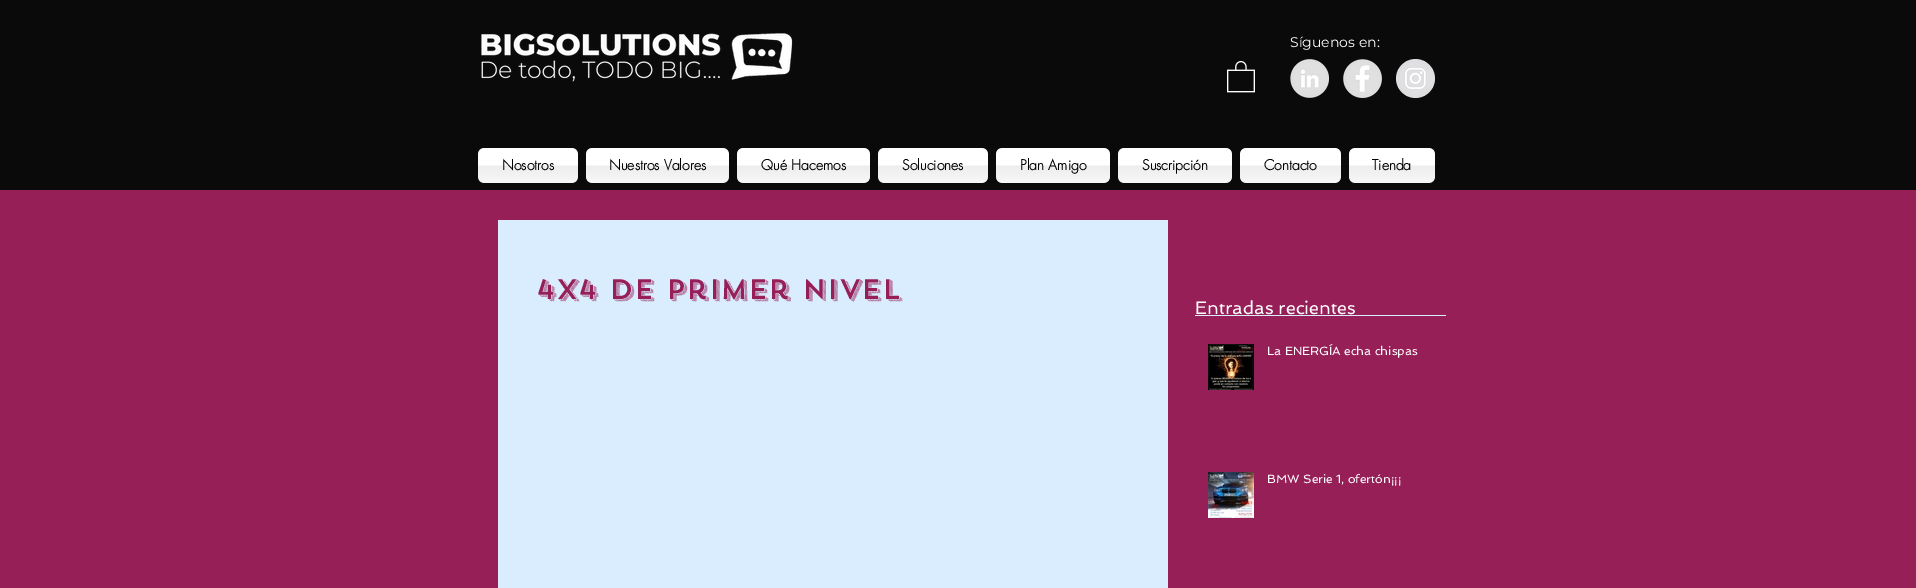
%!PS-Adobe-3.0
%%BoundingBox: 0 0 1916 588
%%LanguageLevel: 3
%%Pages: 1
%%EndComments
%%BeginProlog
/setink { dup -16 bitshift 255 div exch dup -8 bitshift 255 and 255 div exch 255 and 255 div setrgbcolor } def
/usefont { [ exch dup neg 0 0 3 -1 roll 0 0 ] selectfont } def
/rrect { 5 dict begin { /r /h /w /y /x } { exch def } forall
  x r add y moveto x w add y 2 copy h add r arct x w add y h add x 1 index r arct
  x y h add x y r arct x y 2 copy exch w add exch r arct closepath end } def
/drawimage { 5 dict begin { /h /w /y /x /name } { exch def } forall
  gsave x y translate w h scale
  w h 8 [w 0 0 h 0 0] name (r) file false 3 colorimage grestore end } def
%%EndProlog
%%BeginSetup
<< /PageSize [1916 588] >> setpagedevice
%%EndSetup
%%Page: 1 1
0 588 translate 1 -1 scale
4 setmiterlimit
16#961F57 setink
0 0 1916 588 rectfill
16#0A0A0A setink
0 0 1916 190 rectfill
(img1.raw) 481 33 312 49 drawimage
/Montserrat-Regular 14 usefont
16#FFFFFF setink
1290 47 moveto (Síguenos en:) show
(img2.raw) 1227 61 28 32 drawimage
(img3.raw) 1290 59 39 39 drawimage
(img4.raw) 1343 59 39 39 drawimage
(img5.raw) 1396 59 39 39 drawimage
478 148 100 35 6 rrect fill
(img6.raw) 478 148 100 35 drawimage
/futura-Bold 14 usefont
16#000000 setink
502 170 moveto (Nosotros) show
16#FFFFFF setink
586 148 143 35 6 rrect fill
(img7.raw) 586 148 143 35 drawimage
16#000000 setink
609 170 moveto (Nuestros Valores) show
16#FFFFFF setink
737 148 133 35 6 rrect fill
(img8.raw) 737 148 133 35 drawimage
16#000000 setink
761 170 moveto (Qué Hacemos) show
16#FFFFFF setink
878 148 110 35 6 rrect fill
(img9.raw) 878 148 110 35 drawimage
16#000000 setink
902 170 moveto (Soluciones) show
16#FFFFFF setink
996 148 114 35 6 rrect fill
(img10.raw) 996 148 114 35 drawimage
16#000000 setink
1020 170 moveto (Plan Amigo) show
16#FFFFFF setink
1118 148 114 35 6 rrect fill
(img10.raw) 1118 148 114 35 drawimage
16#000000 setink
1142 170 moveto (Suscripción) show
16#FFFFFF setink
1240 148 101 35 6 rrect fill
(img11.raw) 1240 148 101 35 drawimage
16#000000 setink
1264 170 moveto (Contacto) show
16#FFFFFF setink
1349 148 86 35 6 rrect fill
(img12.raw) 1349 148 86 35 drawimage
16#000000 setink
1372 170 moveto (Tienda) show
16#DAEDFF setink
498 220 670 368 rectfill
/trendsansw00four-Medium 28 usefont
16#961F57 setink
536 299 moveto (4x4 de Primer Nivel) show
/Spinnaker-Regular 18 usefont
16#FFFFFF setink
1195 314 moveto (Entradas recientes) show
16#DAEDFF setink
1195 315 251 1 rectfill
(img13.raw) 1208 344 46 46 drawimage
/Spinnaker-Regular 12 usefont
16#FFFFFF setink
1267 355 moveto (La ENERGÍA echa chispas) show
(img14.raw) 1208 472 46 46 drawimage
1267 483 moveto (BMW Serie 1, ofertón¡¡¡) show
showpage
%%EOF
